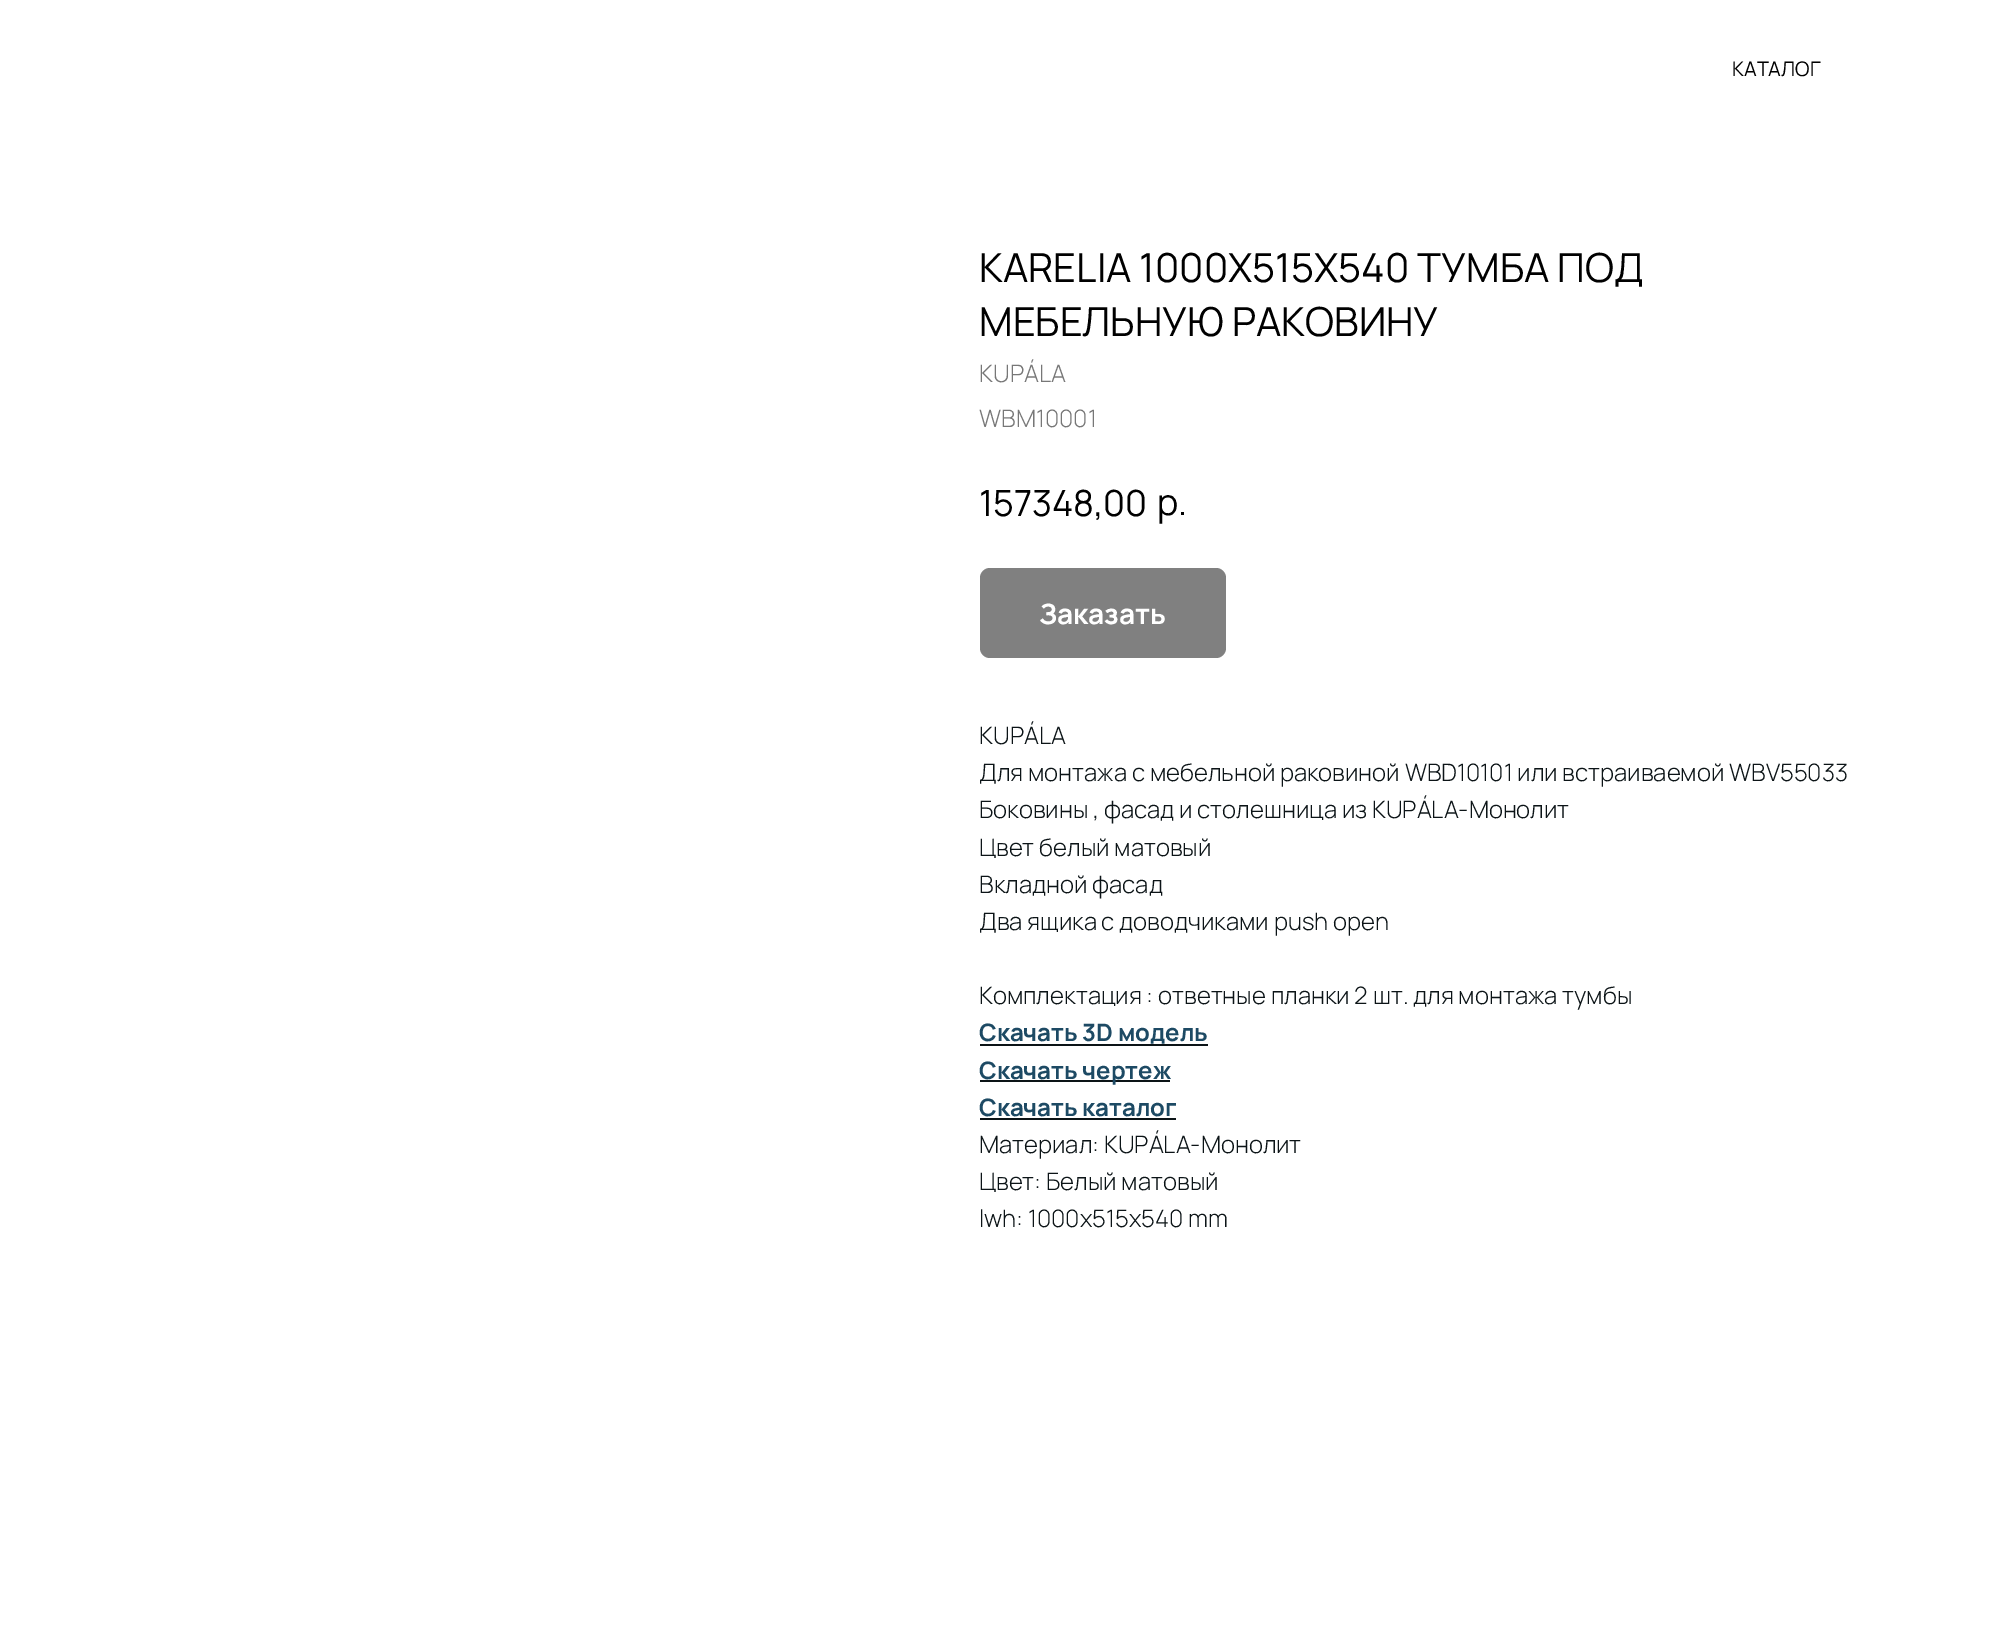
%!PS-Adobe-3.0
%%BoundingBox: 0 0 1998 1632
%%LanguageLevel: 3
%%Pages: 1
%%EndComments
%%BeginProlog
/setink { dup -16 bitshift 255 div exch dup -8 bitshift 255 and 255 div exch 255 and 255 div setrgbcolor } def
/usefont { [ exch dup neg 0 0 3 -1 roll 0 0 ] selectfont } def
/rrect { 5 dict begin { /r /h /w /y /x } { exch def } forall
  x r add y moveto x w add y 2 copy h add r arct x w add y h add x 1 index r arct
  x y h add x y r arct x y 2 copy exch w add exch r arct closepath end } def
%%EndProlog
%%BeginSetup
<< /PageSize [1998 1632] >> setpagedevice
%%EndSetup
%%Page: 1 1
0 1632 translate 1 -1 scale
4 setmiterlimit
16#FFFFFF setink
0 0 1998 1632 rectfill
/Manrope-Regular 20 usefont
16#000000 setink
1732 76 moveto (КАТАЛОГ) show
/Manrope-Regular 40 usefont
979 282 moveto (KARELIA 1000X515X540 ТУМБА ПОД) show
979 336 moveto (МЕБЕЛЬНУЮ РАКОВИНУ) show
/Manrope-Light 24 usefont
16#777777 setink
979 382 moveto (KUPÁLA) show
979 427 moveto (WBM10001) show
/Manrope-Regular 36 usefont
16#000000 setink
979 516 moveto (157348,00) show
1157 515 moveto (р.) show
16#808080 setink
980 568 246 90 10 rrect fill
/Manrope-Bold 28 usefont
16#FFFFFF setink
1039 624 moveto (Заказать) show
/Manrope-Light 24 usefont
16#0C1417 setink
[
    [(KUPÁLA) 979 744]
    [(Для монтажа с мебельной раковиной WBD10101 или встраиваемой WBV55033) 979 781]
    [(Боковины , фасад и столешница из KUPÁLA-Монолит) 979 818]
    [(Цвет белый матовый) 979 856]
    [(Вкладной фасад) 979 893]
    [(Два ящика с доводчиками push open) 979 930]
    [(Комплектация : ответные планки 2 шт. для монтажа тумбы) 979 1004]
] { aload pop moveto show } forall
/Manrope-Bold 24 usefont
16#1D4A64 setink
979 1041 moveto (Скачать 3D модель) show
16#0C1417 setink
980 1044 228 2 rectfill
980 1080 190 2 rectfill
16#1D4A64 setink
979 1079 moveto (Скачать чертеж) show
979 1116 moveto (Скачать каталог) show
16#0C1417 setink
980 1118 196 2 rectfill
/Manrope-Light 24 usefont
[
    [(Материал: KUPÁLA-Монолит) 979 1153]
    [(Цвет: Белый матовый) 979 1190]
    [(lwh: 1000x515x540 mm) 979 1227]
] { aload pop moveto show } forall
showpage
%%EOF
